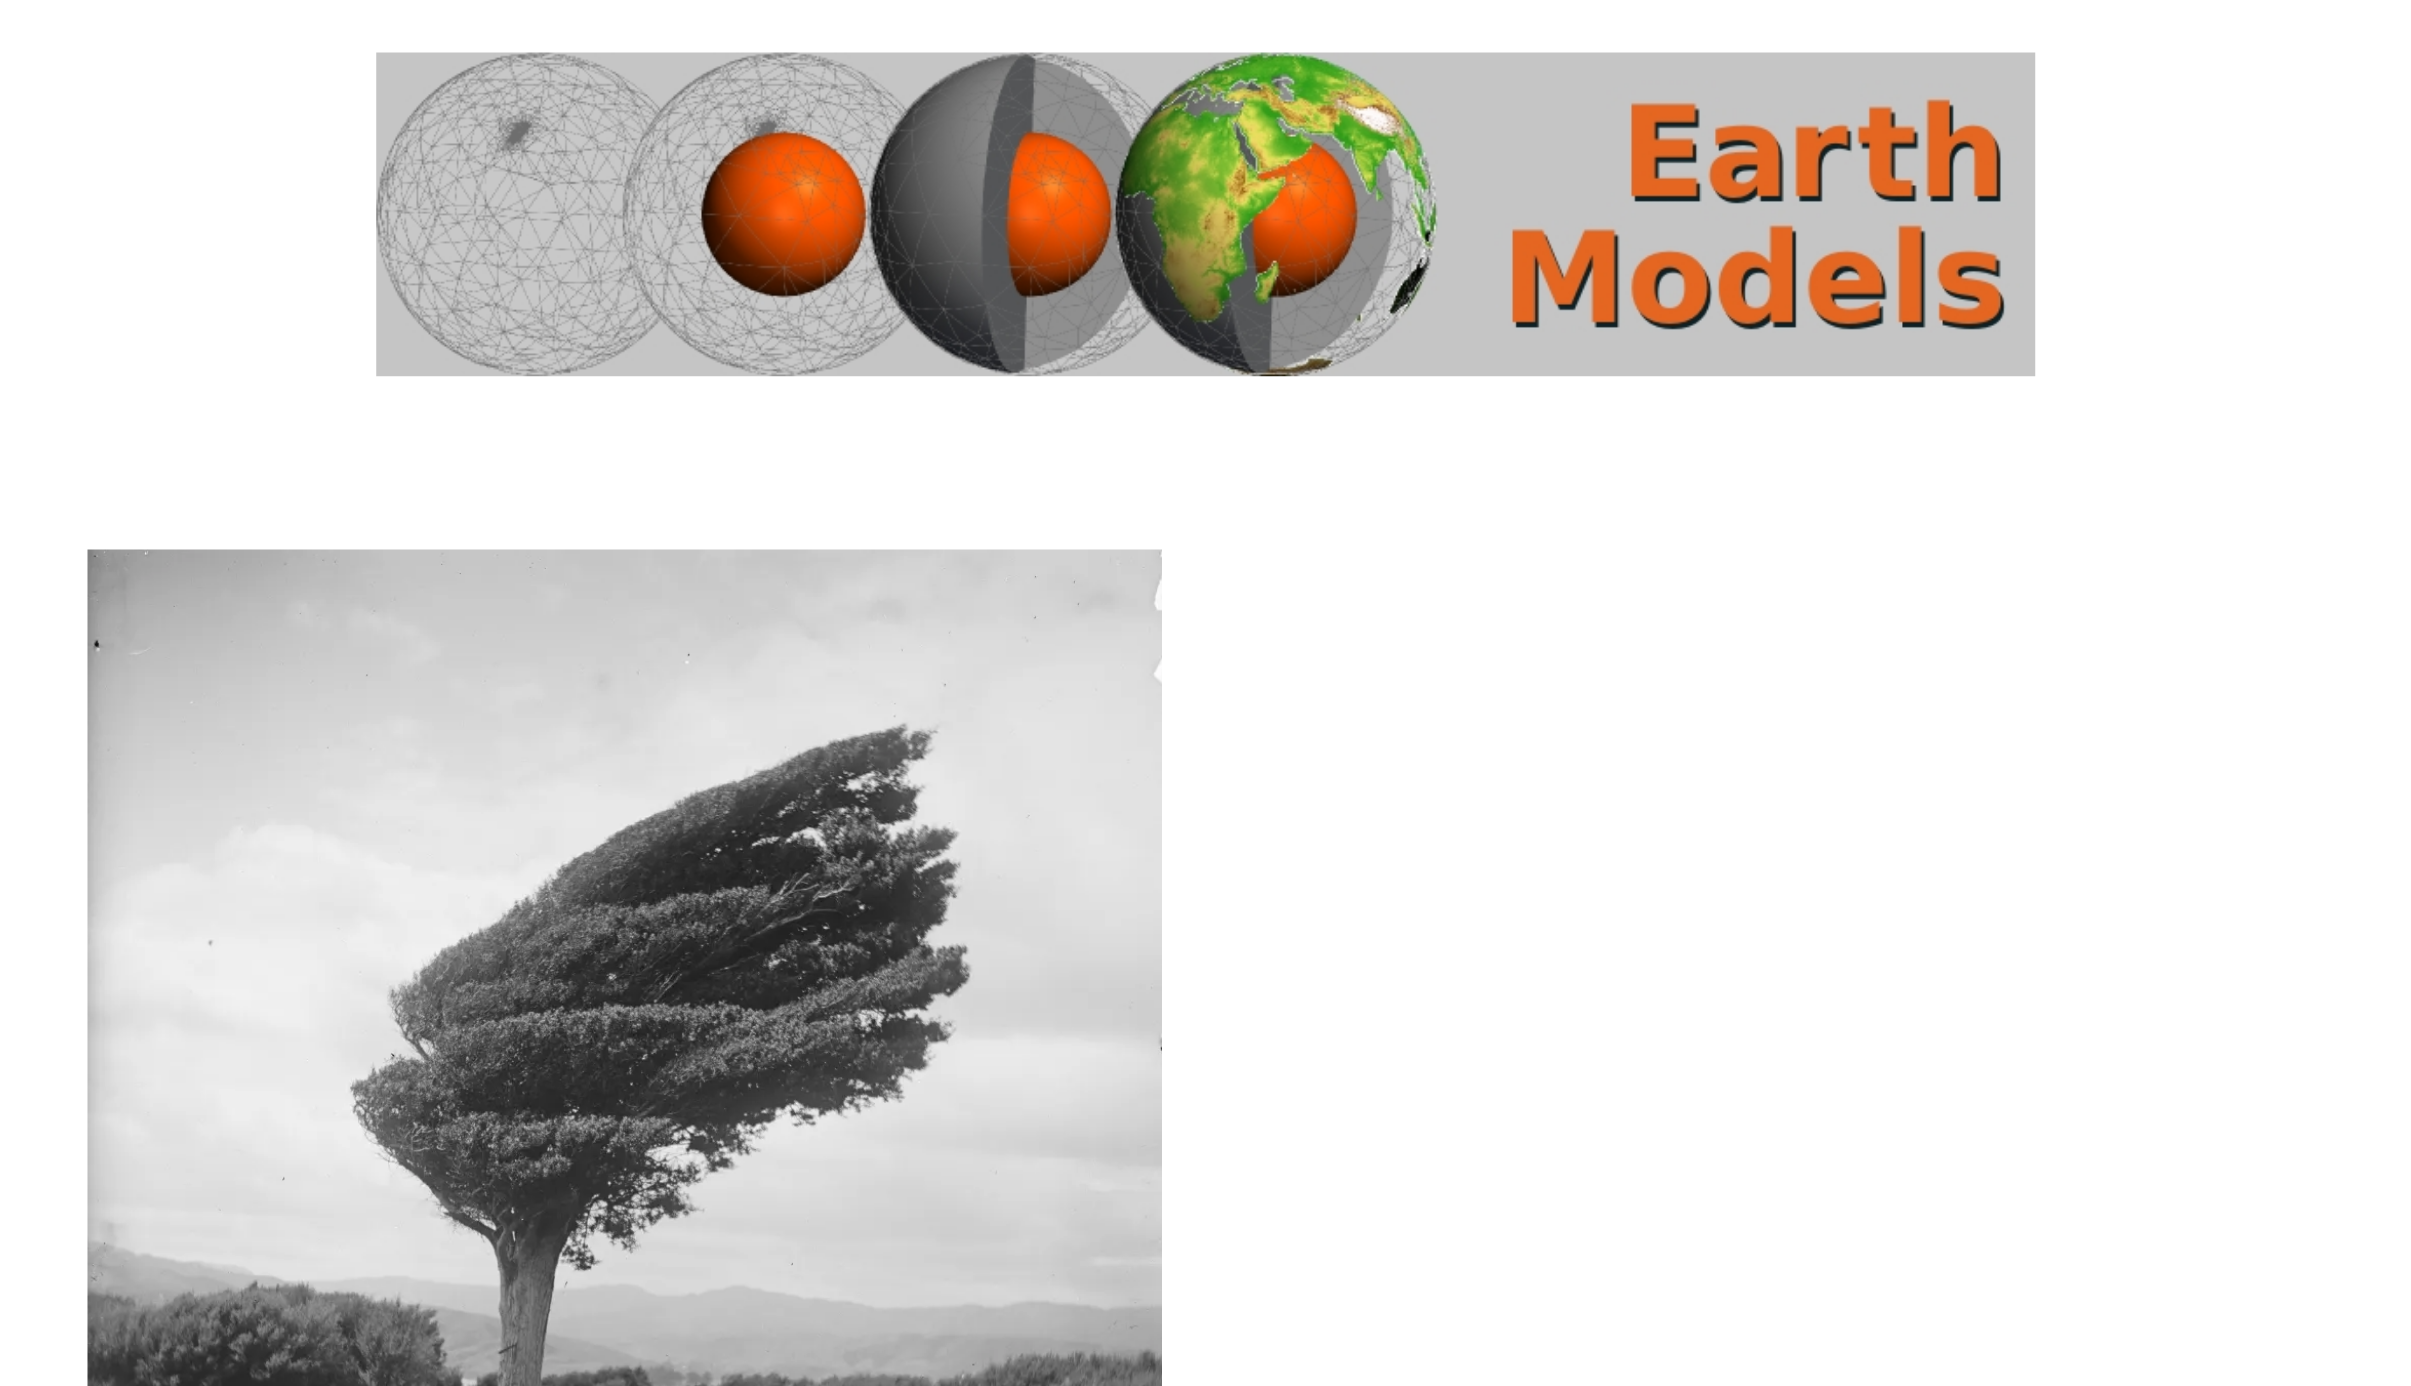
%!PS-Adobe-3.0
%%BoundingBox: 0 0 2411 1386
%%LanguageLevel: 3
%%Pages: 1
%%EndComments
%%BeginProlog
/setink { dup -16 bitshift 255 div exch dup -8 bitshift 255 and 255 div exch 255 and 255 div setrgbcolor } def
/drawimage { 5 dict begin { /h /w /y /x /name } { exch def } forall
  gsave x y translate w h scale
  w h 8 [w 0 0 h 0 0] name (r) file false 3 colorimage grestore end } def
%%EndProlog
%%BeginSetup
<< /PageSize [2411 1386] >> setpagedevice
%%EndSetup
%%Page: 1 1
0 1386 translate 1 -1 scale
4 setmiterlimit
16#FFFFFF setink
0 0 2411 1386 rectfill
(img1.raw) 376 52 1660 325 drawimage
(img2.raw) 87 549 1075 837 drawimage
showpage
%%EOF
